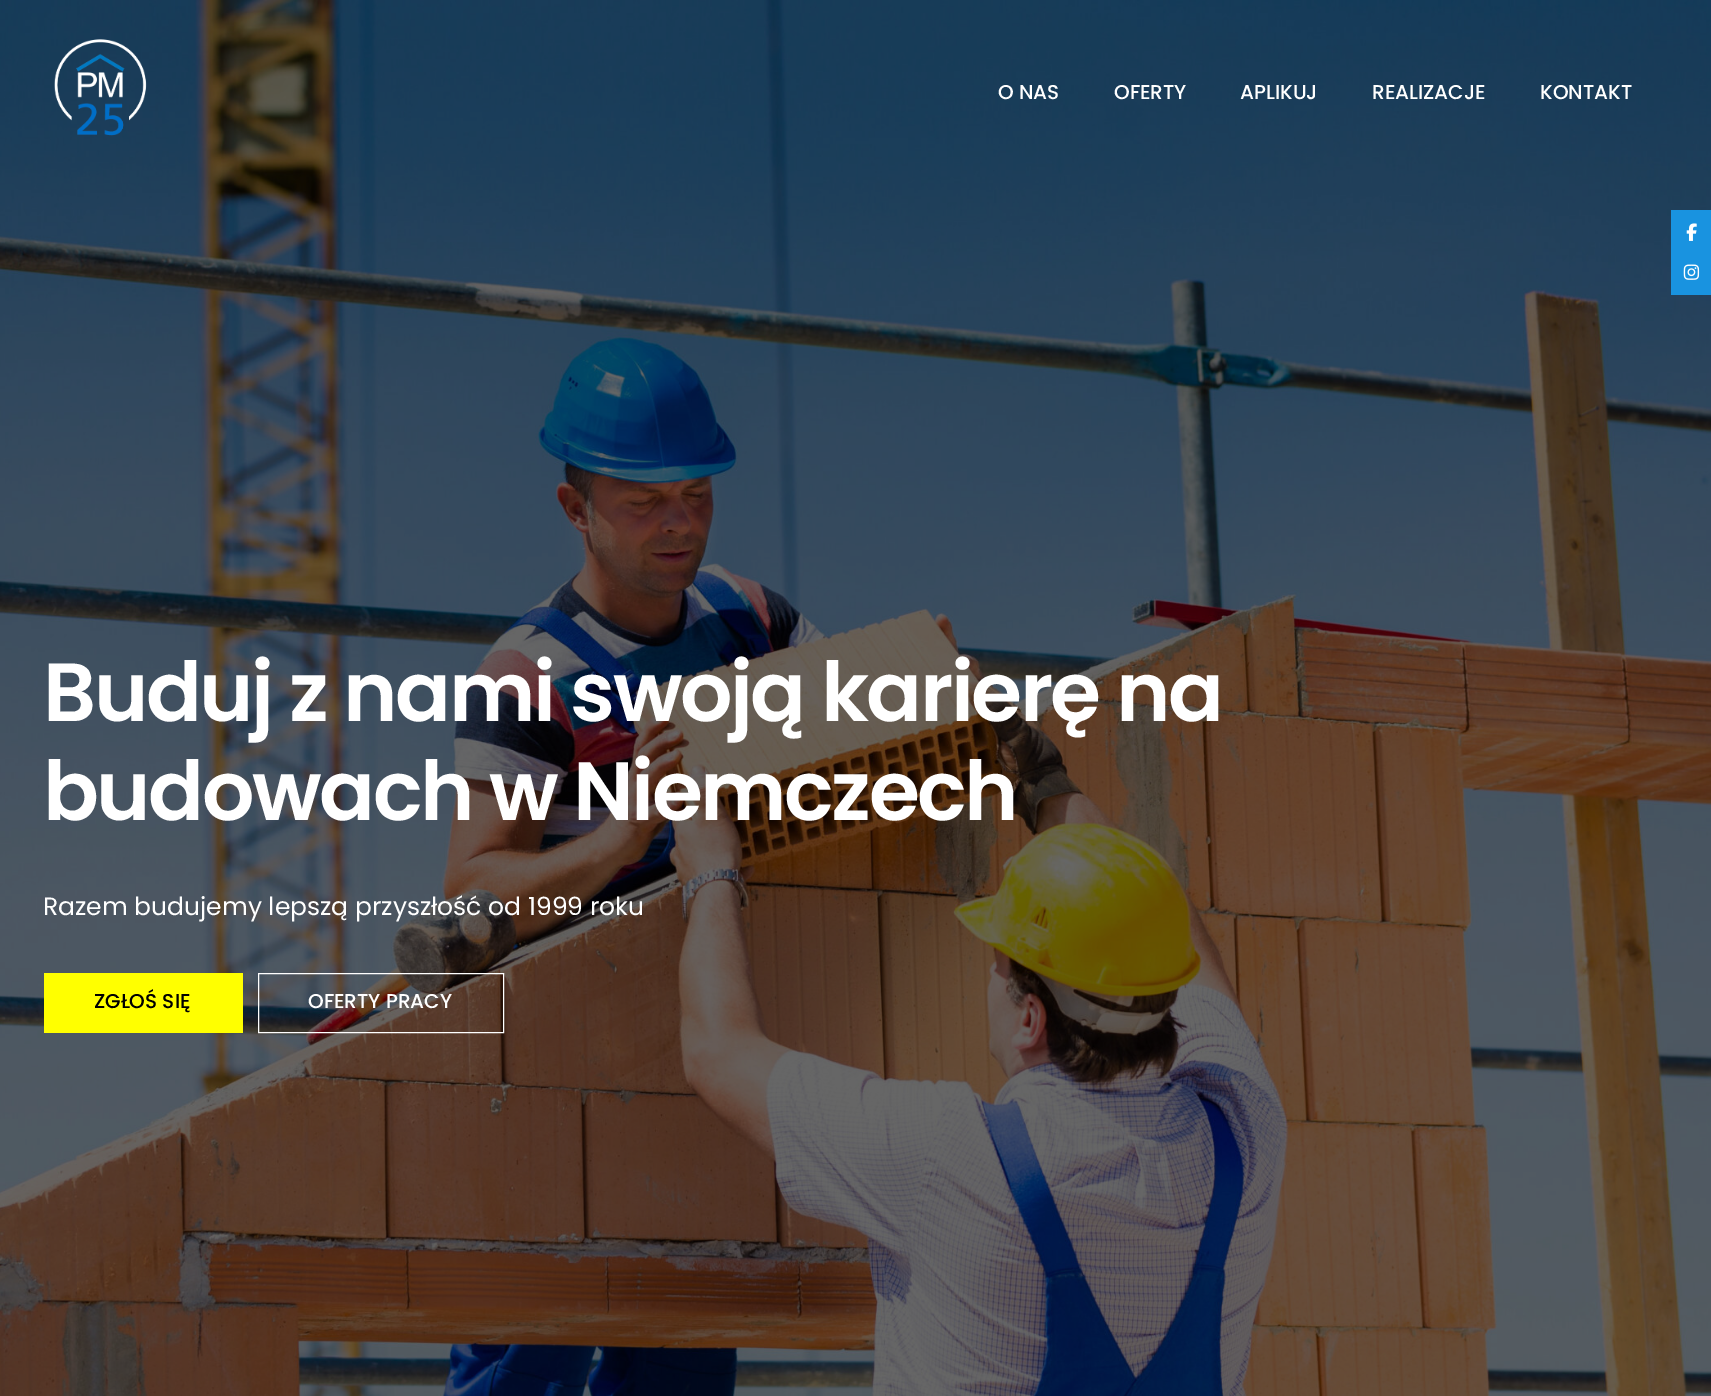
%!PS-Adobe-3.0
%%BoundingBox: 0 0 1711 1396
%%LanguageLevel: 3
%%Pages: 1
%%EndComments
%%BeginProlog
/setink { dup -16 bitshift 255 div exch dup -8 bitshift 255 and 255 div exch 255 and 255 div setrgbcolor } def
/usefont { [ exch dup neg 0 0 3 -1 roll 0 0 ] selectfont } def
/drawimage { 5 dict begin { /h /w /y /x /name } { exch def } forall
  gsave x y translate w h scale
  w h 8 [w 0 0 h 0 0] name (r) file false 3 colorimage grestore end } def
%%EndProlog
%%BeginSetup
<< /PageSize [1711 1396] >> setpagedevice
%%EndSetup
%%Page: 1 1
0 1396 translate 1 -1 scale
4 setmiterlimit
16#FFFFFF setink
0 0 1711 1396 rectfill
(img4.raw) 0 0 1711 1396 drawimage
(img1.raw) 54 39 93 97 drawimage
/Poppins-Medium 20 usefont
[
    [(O NAS) 998 99]
    [(OFERTY) 1114 99]
    [(APLIKUJ) 1240 99]
    [(REALIZACJE) 1372 99]
    [(KONTAKT) 1540 99]
] { aload pop moveto show } forall
16#1993E0 setink
1671 210 40 85 rectfill
(img2.raw) 1686 223 11 18 drawimage
(img3.raw) 1683 264 17 16 drawimage
/Poppins-SemiBold 82.5 usefont
16#FFFFFF setink
43 721 moveto -2.5 0 (Buduj z nami swoją karierę na) ashow
43 820 moveto -2.5 0 (budowach w Niemczech) ashow
/Poppins-Regular 25 usefont
43 915 moveto (Razem budujemy lepszą przyszłość od 1999 roku) show
16#FFFF00 setink
44 973 199 60 rectfill
/Poppins-Medium 20 usefont
16#000000 setink
94 1008 moveto (ZGŁOŚ SIĘ) show
16#FFFFFF setink
258.5 973.5 245 59 rectstroke
308 1008 moveto (OFERTY PRACY) show
showpage
%%EOF
